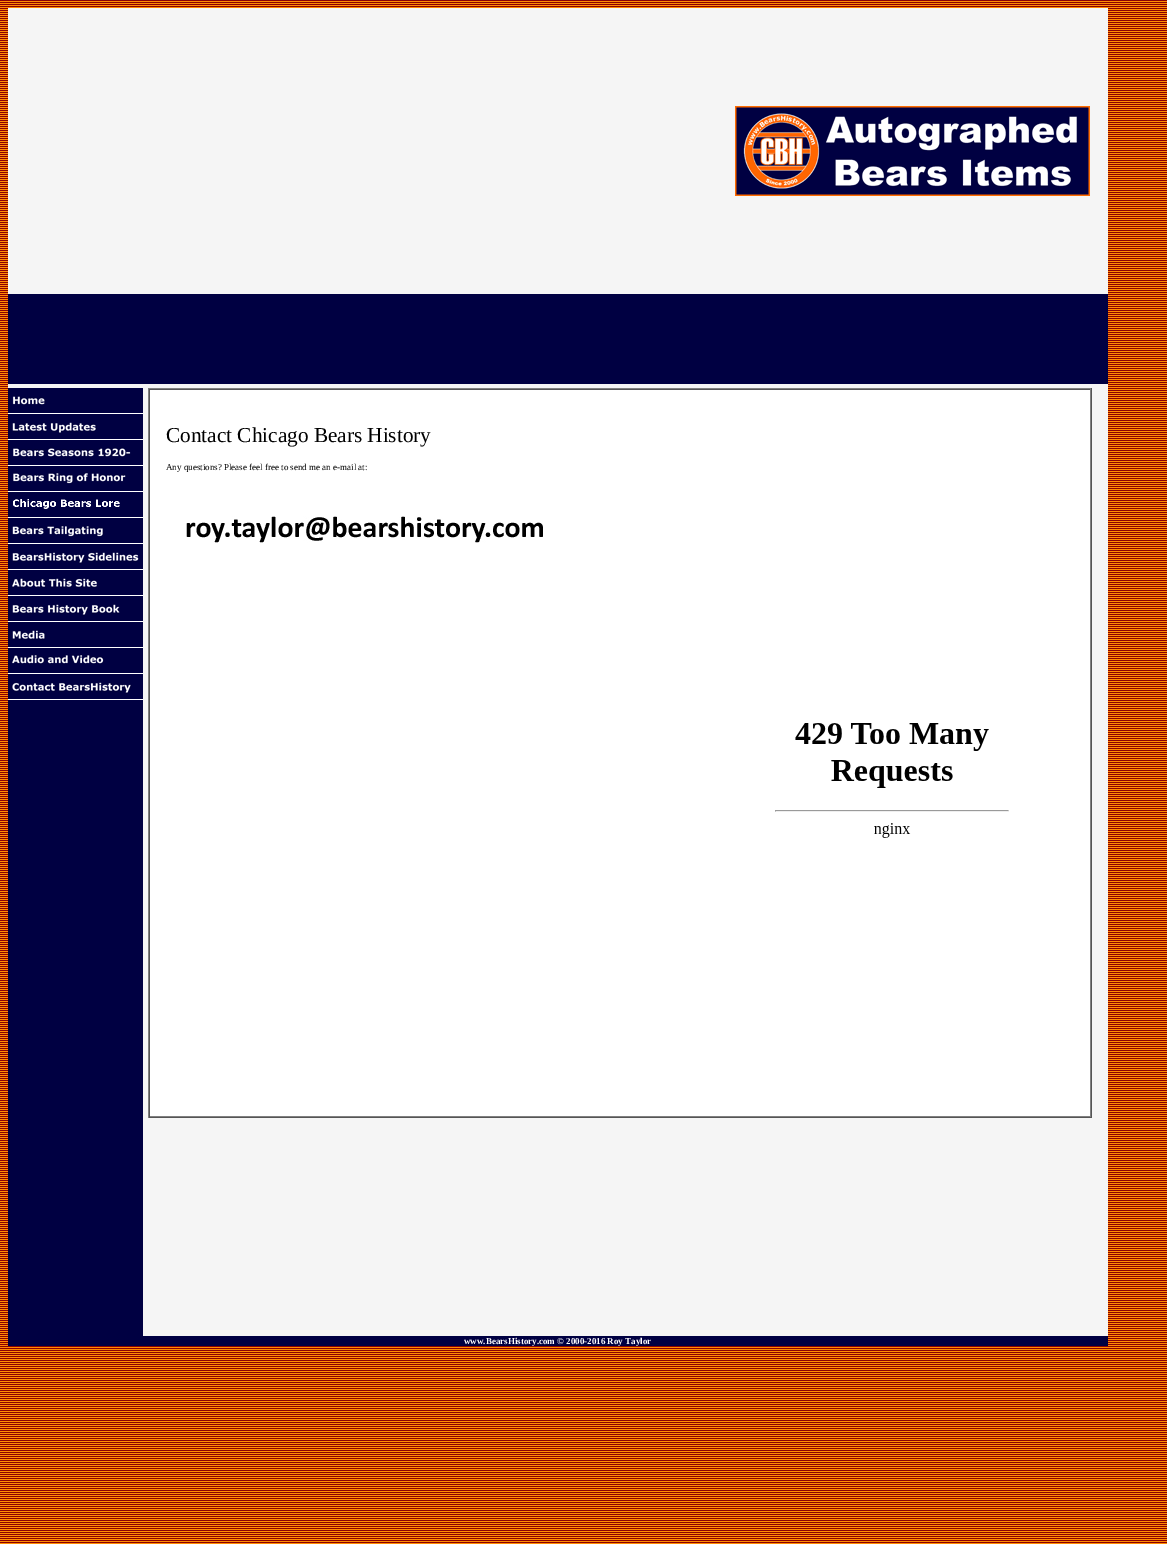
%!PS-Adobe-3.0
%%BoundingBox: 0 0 1167 1544
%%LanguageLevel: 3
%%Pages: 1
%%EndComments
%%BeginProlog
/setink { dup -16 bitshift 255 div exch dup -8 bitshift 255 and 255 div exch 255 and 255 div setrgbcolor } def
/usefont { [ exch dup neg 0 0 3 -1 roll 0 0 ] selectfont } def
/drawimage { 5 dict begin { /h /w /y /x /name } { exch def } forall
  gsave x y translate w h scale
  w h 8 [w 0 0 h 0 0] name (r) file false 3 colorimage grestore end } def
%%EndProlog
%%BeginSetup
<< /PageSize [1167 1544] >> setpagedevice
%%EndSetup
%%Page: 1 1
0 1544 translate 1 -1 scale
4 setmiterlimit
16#FFFFFF setink
0 0 1167 1544 rectfill
(img1.raw) 0 0 1167 1544 drawimage
16#F5F5F5 setink
8 8 1100 1328 rectfill
(img2.raw) 735 106 355 90 drawimage
16#000042 setink
8 294 1100 90 rectfill
8 388 135 948 rectfill
(img3.raw) 12 395 34 11 drawimage
16#FFFFFF setink
8 413 135 1 rectfill
(img4.raw) 11 421 86 13 drawimage
8 439 135 1 rectfill
(img5.raw) 13 447 118 11 drawimage
8 465 135 1 rectfill
(img6.raw) 12 472 115 12 drawimage
8 491 135 1 rectfill
(img7.raw) 13 499 107 10 drawimage
8 517 135 1 rectfill
(img8.raw) 11 525 93 12 drawimage
8 543 135 1 rectfill
(img9.raw) 11 551 129 13 drawimage
8 569 135 1 rectfill
(img10.raw) 11 577 87 11 drawimage
8 595 135 1 rectfill
(img11.raw) 11 603 109 13 drawimage
8 621 135 1 rectfill
(img12.raw) 11 629 35 11 drawimage
8 647 135 1 rectfill
(img13.raw) 11 654 93 11 drawimage
8 673 135 1 rectfill
(img14.raw) 11 681 121 13 drawimage
[
    [8 699 135 1 16#FFFFFF]
    [150 390 940 726 16#FFFFFF]
    [148 388 944 1 16#808080]
    [1091 388 1 730 16#555555]
    [148 1117 944 1 16#555555]
    [148 388 1 730 16#808080]
    [149 389 942 1 16#555555]
    [1090 389 1 728 16#808080]
    [149 1116 942 1 16#808080]
    [149 389 1 728 16#555555]
] { aload pop setink rectfill } forall
/LiberationSerif-Regular 21.25 usefont
16#000000 setink
166 442 moveto (Contact Chicago Bears History) show
/LiberationSerif-Regular 9 usefont
166 470 moveto (Any questions? Please feel free to send me an e-mail at:) show
(img15.raw) 186 516 357 27 drawimage
(img16.raw) 775 723 234 115 drawimage
16#000042 setink
8 1336 1100 10 rectfill
/LiberationSerif-Bold 9 usefont
16#FFFFFF setink
464 1344 moveto (www.BearsHistory.com © 2000-2016 Roy Taylor) show
showpage
%%EOF
